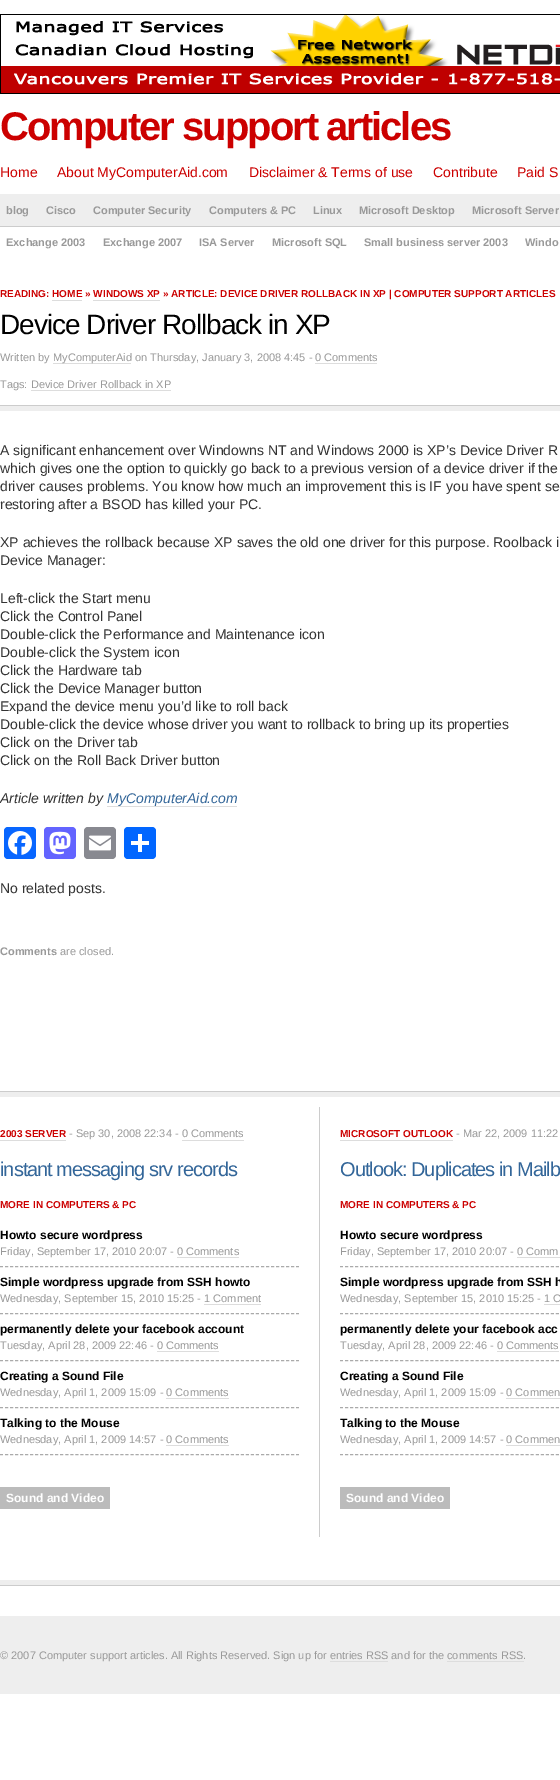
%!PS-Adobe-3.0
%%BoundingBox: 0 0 560 1780
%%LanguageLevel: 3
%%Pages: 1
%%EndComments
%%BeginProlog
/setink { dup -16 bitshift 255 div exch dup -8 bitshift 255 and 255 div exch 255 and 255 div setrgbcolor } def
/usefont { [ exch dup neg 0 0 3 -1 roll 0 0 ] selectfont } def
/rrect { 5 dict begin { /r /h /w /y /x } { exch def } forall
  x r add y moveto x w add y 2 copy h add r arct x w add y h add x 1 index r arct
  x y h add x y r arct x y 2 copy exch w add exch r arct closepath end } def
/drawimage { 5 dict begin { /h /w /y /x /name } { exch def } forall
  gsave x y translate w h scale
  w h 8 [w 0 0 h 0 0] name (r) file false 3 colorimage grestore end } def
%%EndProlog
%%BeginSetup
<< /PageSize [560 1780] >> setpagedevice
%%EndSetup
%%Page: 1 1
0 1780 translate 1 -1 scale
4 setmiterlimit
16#FFFFFF setink
0 0 560 1780 rectfill
(img1.raw) 0 14 560 80 drawimage
/LiberationSans-Bold 40 usefont
16#CC0000 setink
0 140 moveto -2 0 (Computer support articles) ashow
/LiberationSans-Regular 14 usefont
[
    [(Home) 0 177]
    [(About MyComputerAid.com) 57 177]
    [(Disclaimer & Terms of use) 249 177]
    [(Contribute) 433 177]
    [(Paid S) 517 177]
] { aload pop moveto show } forall
16#EEEEEE setink
0 194 560 32 rectfill
16#CCCCCC setink
0 226 560 1 rectfill
/LiberationSans-Bold 11 usefont
16#999999 setink
[
    [(blog) 6 214]
    [(Cisco) 46 214]
    [(Computer Security) 93 214]
    [(Computers & PC) 209 214]
    [(Linux) 313 214]
    [(Microsoft Desktop) 359 214]
    [(Microsoft Server) 472 214]
    [(Exchange 2003) 6 246]
    [(Exchange 2007) 103 246]
    [(ISA Server) 199 246]
    [(Microsoft SQL) 272 246]
    [(Small business server 2003) 364 246]
    [(Windo) 525 246]
] { aload pop moveto show } forall
/LiberationSans-Bold 10 usefont
16#CC0000 setink
0 297 moveto (READING: HOME » WINDOWS XP » ARTICLE: DEVICE DRIVER ROLLBACK IN XP | COMPUTER SUPPORT ARTICLES) show
16#DDDDDD setink
52 300 30 1 rectfill
93 300 67 1 rectfill
/LiberationSans-Regular 28 usefont
16#000000 setink
0 334 moveto -1 0 (Device Driver Rollback in XP) ashow
/LiberationSans-Regular 11 usefont
16#999999 setink
0 361 moveto (Written by) show
16#DDDDDD setink
53 363 78 1 rectfill
16#999999 setink
53 361 moveto (MyComputerAid on Thursday, January 3, 2008 4:45 - 0 Comments) show
16#DDDDDD setink
315 363 62 1 rectfill
16#999999 setink
0 388 moveto (Tags: Device Driver Rollback in XP) show
[
    [31 390 140 1 16#DDDDDD]
    [0 406 560 5 16#EEEEEE]
    [0 405 560 1 16#CCCCCC]
] { aload pop setink rectfill } forall
/LiberationSans-Regular 14 usefont
16#333333 setink
[
    [(A significant enhancement over Windowns NT and Windows 2000 is XP’s Device Driver R) 0 455]
    [(which gives one the option to quickly go back to a previous version of a device driver if the) 0 473]
    [(driver causes problems. You know how much an improvement this is IF you have spent se) 0 491]
    [(restoring after a BSOD has killed your PC.) 0 509]
    [(XP achieves the rollback because XP saves the old one driver for this purpose. Roolback i) 0 547]
    [(Device Manager:) 0 565]
    [(Left-click the Start menu) 0 603]
    [(Click the Control Panel) 0 621]
    [(Double-click the Performance and Maintenance icon) 0 639]
    [(Double-click the System icon) 0 657]
    [(Click the Hardware tab) 0 675]
    [(Click the Device Manager button) 0 693]
    [(Expand the device menu you’d like to roll back) 0 711]
    [(Double-click the device whose driver you want to rollback to bring up its properties) 0 729]
    [(Click on the Driver tab) 0 747]
    [(Click on the Roll Back Driver button) 0 765]
] { aload pop moveto show } forall
/LiberationSans-Italic 14 usefont
0 803 moveto (Article written by) show
16#336699 setink
107 803 moveto (MyComputerAid.com) show
16#DDDDDD setink
107 806 130 1 rectfill
16#0866FF setink
4 827 32 32 4 rrect fill
(img2.raw) 8 831 24 24 drawimage
16#6364FF setink
44 827 32 32 4 rrect fill
(img3.raw) 49 831 22 24 drawimage
16#888990 setink
84 827 32 32 4 rrect fill
(img4.raw) 89 835 22 16 drawimage
16#0166FF setink
124 827 32 32 4 rrect fill
16#FFFFFF setink
138 834 4 18 rectfill
131 841 18 4 rectfill
/LiberationSans-Regular 14 usefont
16#333333 setink
0 893 moveto (No related posts.) show
/LiberationSans-Bold 11 usefont
16#999999 setink
0 955 moveto (Comments) show
/LiberationSans-Regular 11 usefont
60 955 moveto (are closed.) show
[
    [0 1092 560 5 16#EEEEEE]
    [0 1091 560 1 16#CCCCCC]
    [319 1107 1 430 16#CCCCCC]
] { aload pop setink rectfill } forall
/LiberationSans-Bold 10 usefont
16#CC0000 setink
0 1137 moveto (2003 SERVER) show
16#DDDDDD setink
0 1140 66 1 rectfill
/LiberationSans-Regular 11 usefont
16#999999 setink
69 1137 moveto (- Sep 30, 2008 22:34 - 0 Comments) show
16#DDDDDD setink
182 1140 62 1 rectfill
/LiberationSans-Regular 20 usefont
16#336699 setink
0 1176 moveto -1 0 (instant messaging srv records) ashow
/LiberationSans-Bold 10 usefont
16#CC0000 setink
0 1208 moveto (MORE IN COMPUTERS & PC) show
16#AAAAAA setink
[3 2.02] 0 setdash
0 1266.5 moveto 299 1266.5 lineto stroke
/LiberationSans-Bold 12 usefont
16#000000 setink
0 1239 moveto (Howto secure wordpress) show
/LiberationSans-Regular 11 usefont
16#999999 setink
0 1255 moveto (Friday, September 17, 2010 20:07 - 0 Comments) show
16#DDDDDD setink
177 1257 62 1 rectfill
16#AAAAAA setink
0 1313.5 moveto 299 1313.5 lineto stroke
/LiberationSans-Bold 12 usefont
16#000000 setink
0 1286 moveto (Simple wordpress upgrade from SSH howto) show
/LiberationSans-Regular 11 usefont
16#999999 setink
0 1302 moveto (Wednesday, September 15, 2010 15:25 - 1 Comment) show
16#DDDDDD setink
204 1304 57 1 rectfill
16#AAAAAA setink
0 1360.5 moveto 299 1360.5 lineto stroke
/LiberationSans-Bold 12 usefont
16#000000 setink
0 1333 moveto (permanently delete your facebook account) show
/LiberationSans-Regular 11 usefont
16#999999 setink
0 1349 moveto (Tuesday, April 28, 2009 22:46 - 0 Comments) show
16#DDDDDD setink
157 1351 62 1 rectfill
16#AAAAAA setink
0 1407.5 moveto 299 1407.5 lineto stroke
/LiberationSans-Bold 12 usefont
16#000000 setink
0 1380 moveto (Creating a Sound File) show
/LiberationSans-Regular 11 usefont
16#999999 setink
0 1396 moveto (Wednesday, April 1, 2009 15:09 - 0 Comments) show
16#DDDDDD setink
166 1398 63 1 rectfill
16#AAAAAA setink
0 1454.5 moveto 299 1454.5 lineto stroke
/LiberationSans-Bold 12 usefont
16#000000 setink
0 1427 moveto (Talking to the Mouse) show
/LiberationSans-Regular 11 usefont
16#999999 setink
0 1443 moveto (Wednesday, April 1, 2009 14:57 - 0 Comments) show
16#DDDDDD setink
166 1445 63 1 rectfill
16#BBBBBB setink
0 1487 110 22 rectfill
/LiberationSans-Bold 12 usefont
16#FFFFFF setink
6 1502 moveto (Sound and Video) show
/LiberationSans-Bold 10 usefont
16#CC0000 setink
340 1137 moveto (MICROSOFT OUTLOOK) show
16#DDDDDD setink
340 1140 113 1 rectfill
/LiberationSans-Regular 11 usefont
16#999999 setink
456 1137 moveto (- Mar 22, 2009 11:22) show
/LiberationSans-Regular 20 usefont
16#336699 setink
340 1176 moveto -1 0 (Outlook: Duplicates in Mailb) ashow
/LiberationSans-Bold 10 usefont
16#CC0000 setink
340 1208 moveto (MORE IN COMPUTERS & PC) show
16#AAAAAA setink
340 1266.5 moveto 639 1266.5 lineto stroke
/LiberationSans-Bold 12 usefont
16#000000 setink
340 1239 moveto (Howto secure wordpress) show
/LiberationSans-Regular 11 usefont
16#999999 setink
340 1255 moveto (Friday, September 17, 2010 20:07 - 0 Comm) show
16#DDDDDD setink
517 1257 43 1 rectfill
16#AAAAAA setink
340 1313.5 moveto 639 1313.5 lineto stroke
/LiberationSans-Bold 12 usefont
16#000000 setink
340 1286 moveto (Simple wordpress upgrade from SSH h) show
/LiberationSans-Regular 11 usefont
16#999999 setink
340 1302 moveto (Wednesday, September 15, 2010 15:25 - 1 C) show
16#DDDDDD setink
544 1304 16 1 rectfill
16#AAAAAA setink
340 1360.5 moveto 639 1360.5 lineto stroke
/LiberationSans-Bold 12 usefont
16#000000 setink
340 1333 moveto (permanently delete your facebook acc) show
/LiberationSans-Regular 11 usefont
16#999999 setink
340 1349 moveto (Tuesday, April 28, 2009 22:46 - 0 Comments) show
16#DDDDDD setink
497 1351 62 1 rectfill
16#AAAAAA setink
340 1407.5 moveto 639 1407.5 lineto stroke
/LiberationSans-Bold 12 usefont
16#000000 setink
340 1380 moveto (Creating a Sound File) show
/LiberationSans-Regular 11 usefont
16#999999 setink
340 1396 moveto (Wednesday, April 1, 2009 15:09 - 0 Commen) show
16#DDDDDD setink
506 1398 54 1 rectfill
16#AAAAAA setink
340 1454.5 moveto 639 1454.5 lineto stroke
/LiberationSans-Bold 12 usefont
16#000000 setink
340 1427 moveto (Talking to the Mouse) show
/LiberationSans-Regular 11 usefont
16#999999 setink
340 1443 moveto (Wednesday, April 1, 2009 14:57 - 0 Commen) show
16#DDDDDD setink
506 1445 54 1 rectfill
16#BBBBBB setink
340 1487 110 22 rectfill
/LiberationSans-Bold 12 usefont
16#FFFFFF setink
346 1502 moveto (Sound and Video) show
[
    [0 1580 560 5 16#EEEEEE]
    [0 1585 560 1 16#CCCCCC]
    [0 1616 560 78 16#EEEEEE]
] { aload pop setink rectfill } forall
/LiberationSans-Regular 11 usefont
16#999999 setink
0 1659 moveto (© 2007 Computer support articles. All Rights Reserved. Sign up for entries RSS and for the comments RSS.) show
16#DDDDDD setink
330 1661 58 1 rectfill
447 1661 77 1 rectfill
showpage
%%EOF
